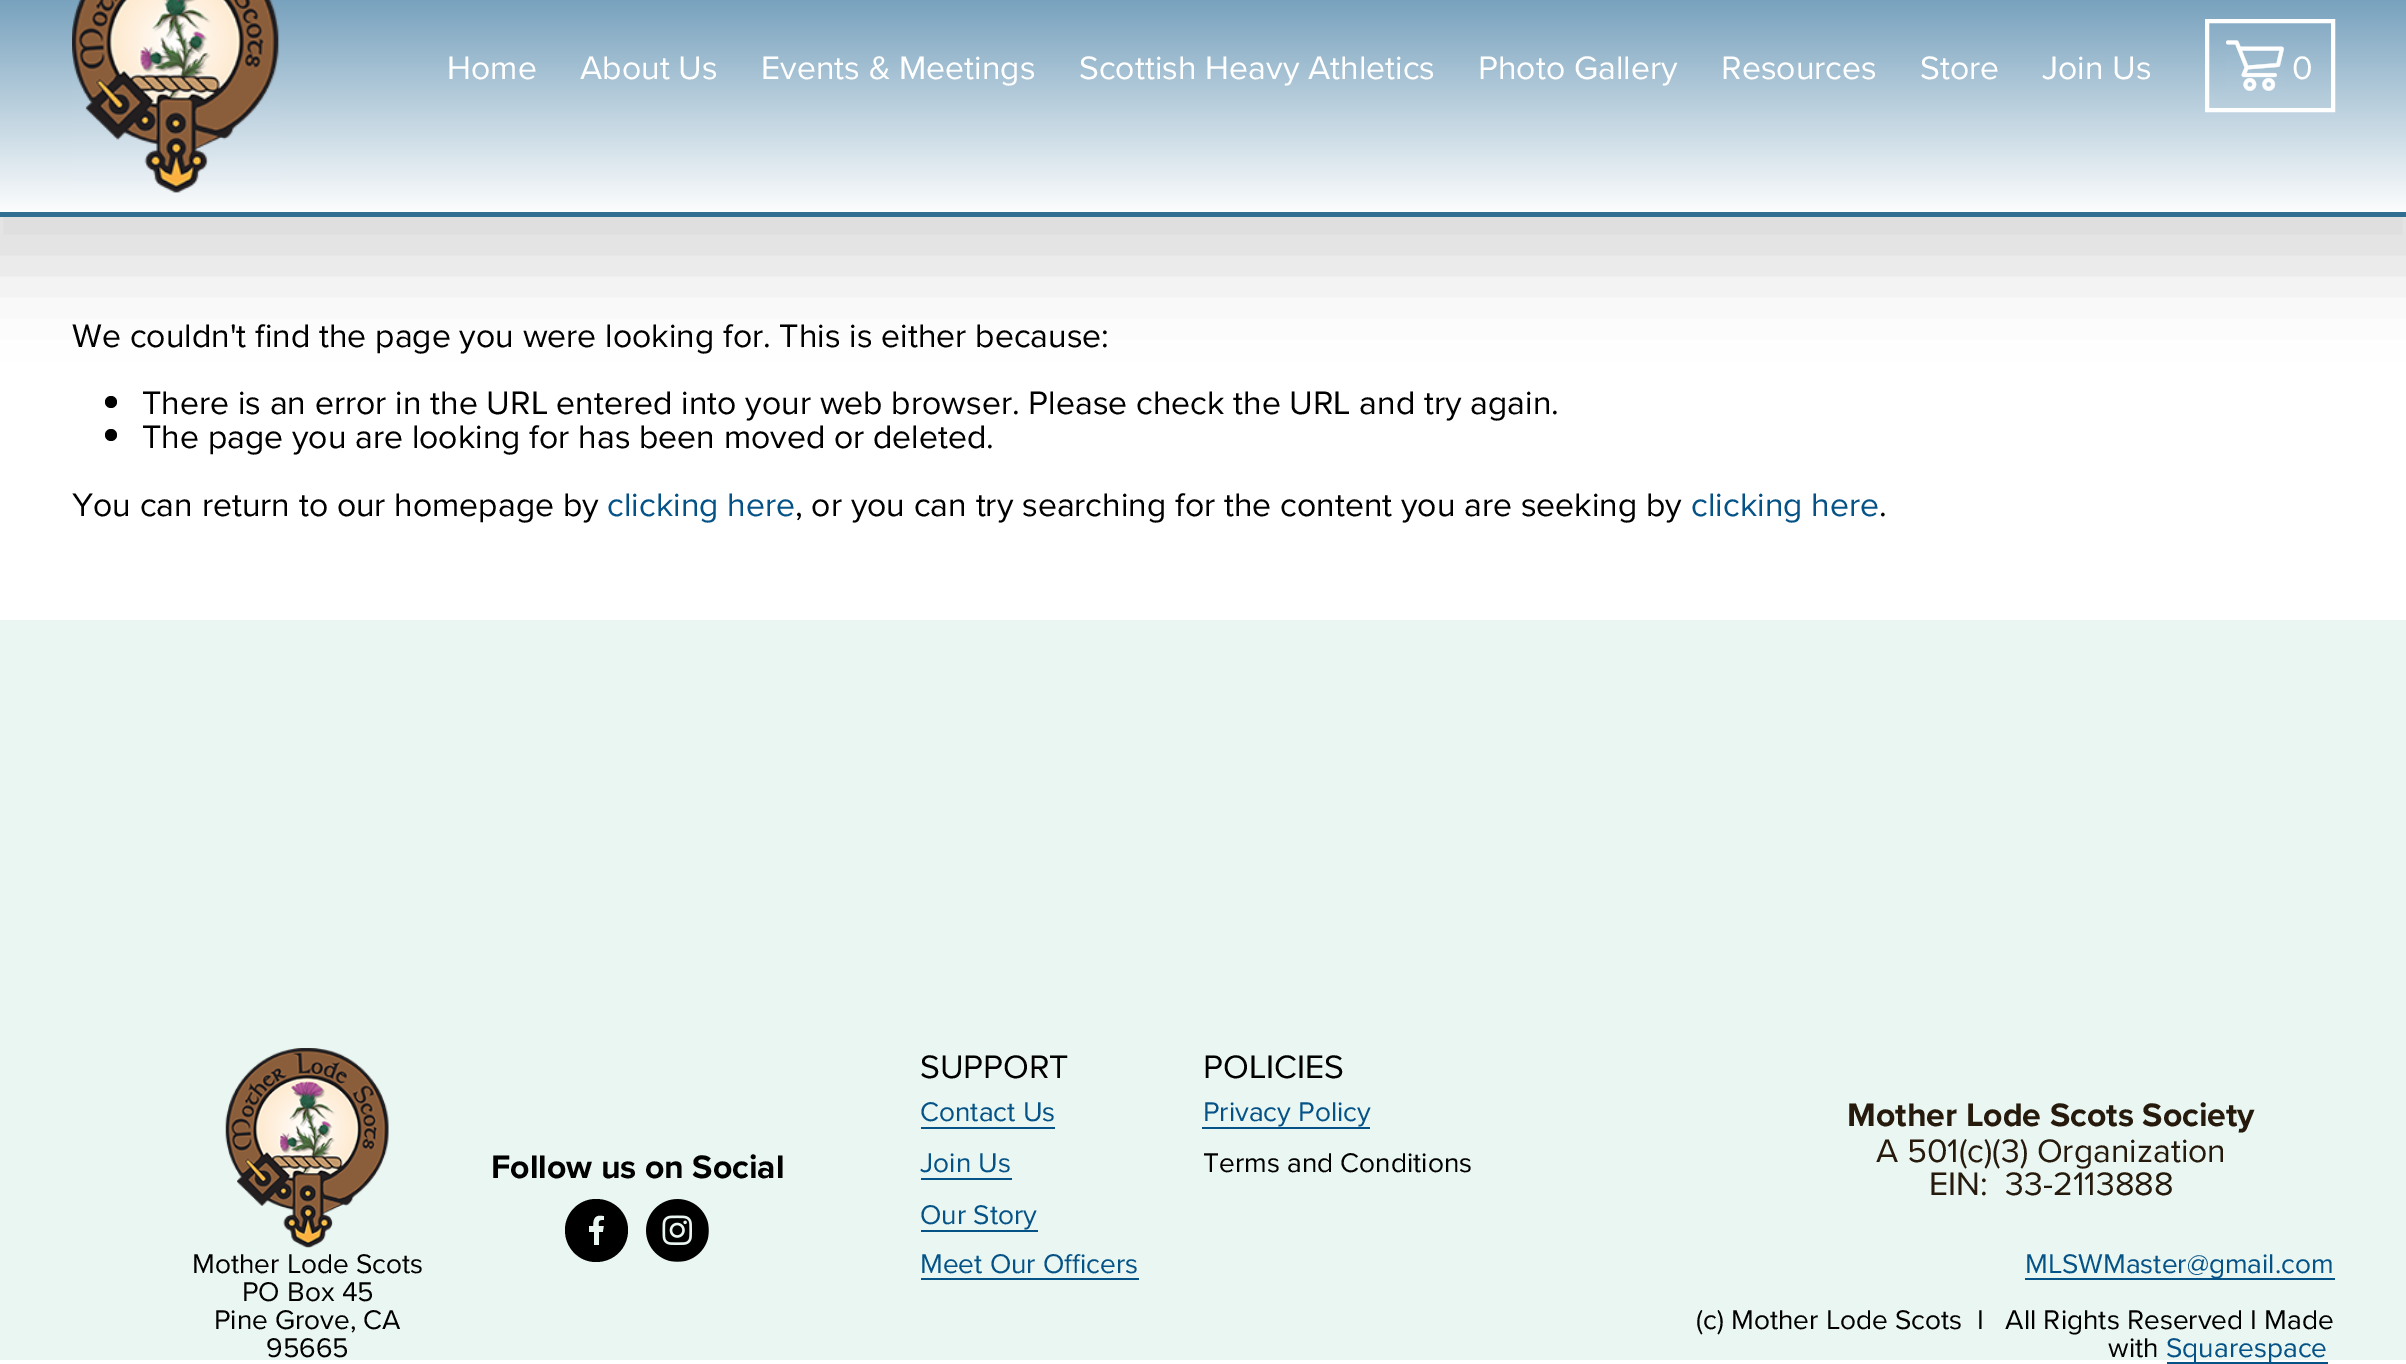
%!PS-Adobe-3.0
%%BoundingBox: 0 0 2406 1364
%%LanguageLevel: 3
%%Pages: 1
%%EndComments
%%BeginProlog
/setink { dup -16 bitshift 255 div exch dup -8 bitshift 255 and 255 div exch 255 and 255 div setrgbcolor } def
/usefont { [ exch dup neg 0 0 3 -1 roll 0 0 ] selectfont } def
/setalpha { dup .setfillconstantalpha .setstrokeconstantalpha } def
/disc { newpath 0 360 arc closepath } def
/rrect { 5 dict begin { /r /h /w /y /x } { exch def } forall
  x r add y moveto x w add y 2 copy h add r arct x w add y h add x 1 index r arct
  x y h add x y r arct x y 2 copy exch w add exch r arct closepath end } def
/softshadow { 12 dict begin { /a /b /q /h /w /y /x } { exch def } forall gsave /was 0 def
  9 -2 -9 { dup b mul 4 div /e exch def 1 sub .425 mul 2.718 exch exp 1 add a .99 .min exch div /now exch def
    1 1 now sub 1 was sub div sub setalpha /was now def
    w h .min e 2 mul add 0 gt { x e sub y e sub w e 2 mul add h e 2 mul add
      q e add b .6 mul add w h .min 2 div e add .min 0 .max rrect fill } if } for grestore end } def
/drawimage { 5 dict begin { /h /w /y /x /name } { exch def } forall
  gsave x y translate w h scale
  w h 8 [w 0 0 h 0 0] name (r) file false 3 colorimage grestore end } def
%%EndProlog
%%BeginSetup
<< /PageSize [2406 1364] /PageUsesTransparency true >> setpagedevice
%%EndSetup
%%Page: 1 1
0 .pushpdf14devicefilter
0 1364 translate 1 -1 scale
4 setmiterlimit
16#FFFFFF setink
0 0 2406 1364 rectfill
16#000000 setink
-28 -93 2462 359 0 42 0.15 softshadow
gsave 0 0 moveto 2406 0 lineto 2406 212 lineto 0 212 lineto closepath clip newpath
<< /ShadingType 2 /ColorSpace /DeviceRGB /Coords [1203 -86 1203 217] /Extend [true true] /Function << /FunctionType 2 /Domain [0 1] /C0 [0.263 0.49 0.643] /C1 [1 1 1] /N 1 >> >> shfill grestore
(img1.raw) 72 0 208 193 drawimage
/ProximaNova-Regular 33.75 usefont
16#FFFFFF setink
[
    [(Home) 447 79]
    [(About Us) 580 79]
    [(Events & Meetings) 761 79]
    [(Scottish Heavy Athletics) 1079 79]
    [(Photo Gallery) 1478 79]
    [(Resources) 1721 79]
    [(Store) 1920 79]
    [(Join Us) 2042 79]
] { aload pop moveto show } forall
4 setlinewidth
2207 21 126 89 rectstroke
(img2.raw) 2226 40 58 51 drawimage
2292 79 moveto (0) show
16#306F91 setink
0 212 2406 5 rectfill
16#000000 setink
72 347 moveto (We couldn't find the page you were looking for. This is either because:) show
111 402 6 disc fill
142 414 moveto (There is an error in the URL entered into your web browser. Please check the URL and try again.) show
111 435 6 disc fill
142 448 moveto (The page you are looking for has been moved or deleted.) show
72 516 moveto (You can return to our homepage by) show
16#045286 setink
607 516 moveto (clicking here) show
16#000000 setink
795 516 moveto (, or you can try searching for the) show
1280 516 moveto (content you are seeking by) show
16#045286 setink
1691 516 moveto (clicking here) show
16#000000 setink
1879 516 moveto (.) show
16#EAF6F2 setink
0 620 2406 740 rectfill
(img3.raw) 225 1048 164 200 drawimage
16#000000 setink
920 1078 moveto (SUPPORT) show
1203 1078 moveto (POLICIES) show
/ProximaNova-Regular 28 usefont
16#045286 setink
920 1121 moveto (Contact Us) show
921 1127 134 2 rectfill
1203 1121 moveto (Privacy Policy) show
1202 1127 168 2 rectfill
/ProximaNova-Bold 33.75 usefont
16#251A0C setink
1847 1126 moveto (Mother Lode Scots Society) show
/ProximaNova-Regular 33.75 usefont
1876 1162 moveto (A 501\(c\)\(3\) Organization) show
1929 1195 moveto (EIN:  33-2113888) show
/ProximaNova-Bold 33.75 usefont
16#000000 setink
491 1178 moveto (Follow us on Social) show
/ProximaNova-Regular 28 usefont
16#045286 setink
920 1172 moveto (Join Us) show
921 1178 91 2 rectfill
16#000000 setink
1203 1172 moveto (Terms and Conditions) show
596 1199 moveto 579 1199 565 1213 565 1230 curveto 565 1248 579 1262 596 1262 curveto 614 1262 628 1248 628 1230 curveto 628 1213 614 1199 596 1199 curveto closepath 604 1220 moveto 604 1216 lineto 595 1214 593 1218 593 1226 curveto 589 1226 lineto 589 1232 lineto 594 1232 lineto 594 1245 lineto 599 1245 lineto 599 1232 lineto 603 1232 lineto 604 1226 lineto 599 1226 lineto 599 1222 598 1220 604 1220 curveto closepath eofill
(img4.raw) 646 1199 63 63 drawimage
16#045286 setink
920 1224 moveto (Our Story) show
921 1230 117 2 rectfill
16#000000 setink
[
    [(Mother Lode Scots) 192 1273]
    [(PO Box 45) 242 1301]
    [(Pine Grove, CA) 214 1329]
    [(95665) 266 1357]
] { aload pop moveto show } forall
16#045286 setink
920 1273 moveto (Meet Our Officers) show
921 1278 218 2 rectfill
2025 1278 310 2 rectfill
2025 1273 moveto (MLSWMaster@gmail.com) show
16#000000 setink
1696 1329 moveto (\(c\) Mother Lode Scots  I   All Rights Reserved I Made) show
2108 1357 moveto (with) show
16#045286 setink
2167 1362 161 2 rectfill
2166 1357 moveto (Squarespace) show
.poppdf14devicefilter showpage
%%EOF
